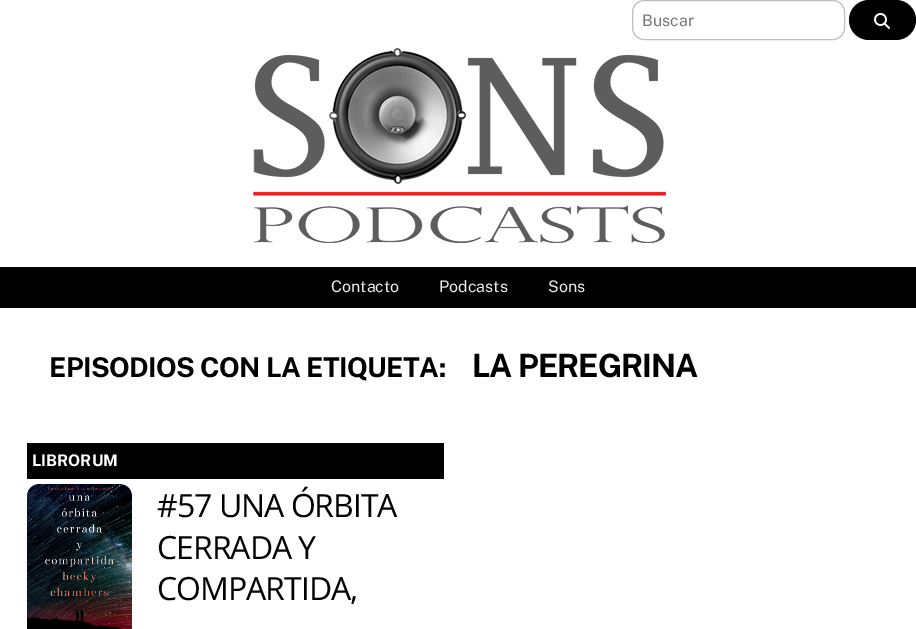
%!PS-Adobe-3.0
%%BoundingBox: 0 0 916 629
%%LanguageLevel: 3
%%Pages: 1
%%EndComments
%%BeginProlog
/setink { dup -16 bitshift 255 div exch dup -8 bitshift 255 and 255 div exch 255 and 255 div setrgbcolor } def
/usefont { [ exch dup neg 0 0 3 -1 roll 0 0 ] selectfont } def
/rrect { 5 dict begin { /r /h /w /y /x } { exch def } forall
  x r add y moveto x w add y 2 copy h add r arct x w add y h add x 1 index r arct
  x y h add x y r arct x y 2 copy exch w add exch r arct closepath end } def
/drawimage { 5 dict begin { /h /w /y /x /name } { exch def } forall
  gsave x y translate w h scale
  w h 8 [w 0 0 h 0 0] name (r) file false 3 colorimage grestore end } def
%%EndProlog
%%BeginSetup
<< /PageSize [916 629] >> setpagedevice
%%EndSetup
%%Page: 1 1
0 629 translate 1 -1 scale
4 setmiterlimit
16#FFFFFF setink
0 0 916 629 rectfill
16#BFBFBF setink
632.5 0.5 212 39 11.5 rrect stroke
/PublicSans-Regular 16 usefont
16#757575 setink
642 26 moveto (Buscar) show
16#000000 setink
849 0 67 40 20 rrect fill
(img1.raw) 874 13 16 16 drawimage
(img2.raw) 253 48 413 195 drawimage
0 267 916 41 rectfill
16#EEEEEE setink
[
    [(Contacto) 331 292]
    [(Podcasts) 439 292]
    [(Sons) 548 292]
] { aload pop moveto show } forall
/PublicSans-Bold 27.25 usefont
16#000000 setink
49 377 moveto -0.55 0 (EPISODIOS CON LA ETIQUETA:) ashow
/PublicSans-Bold 32 usefont
472 377 moveto -1 0 (LA PEREGRINA) ashow
27 443 417 36 rectfill
/PublicSans-Bold 16 usefont
16#FFFFFF setink
32 466 moveto (LIBRORUM) show
(img3.raw) 27 484 105 145 drawimage
/OpenSans-Regular 32 usefont
16#000000 setink
157 517 moveto -1 0 (#57 UNA ÓRBITA) ashow
157 559 moveto -1 0 (CERRADA Y) ashow
157 600 moveto -1 0 (COMPARTIDA,) ashow
showpage
%%EOF
